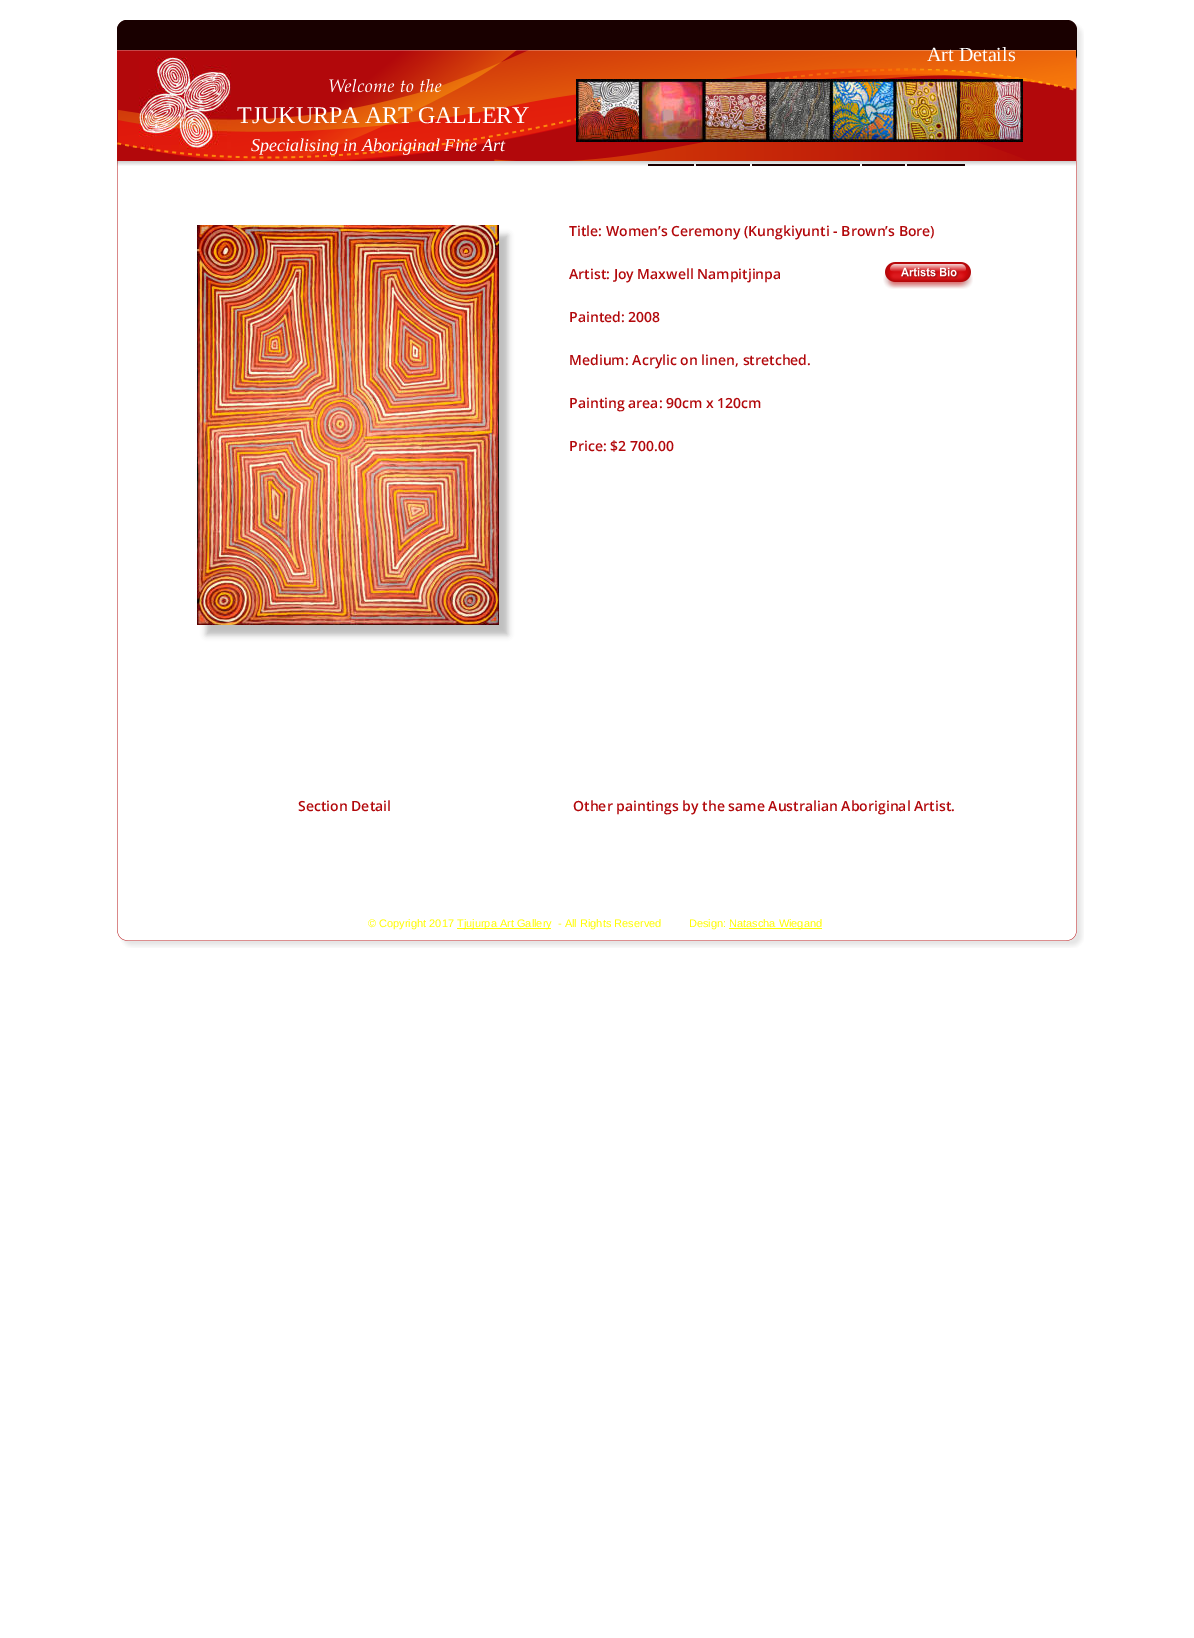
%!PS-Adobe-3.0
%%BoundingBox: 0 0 1194 1638
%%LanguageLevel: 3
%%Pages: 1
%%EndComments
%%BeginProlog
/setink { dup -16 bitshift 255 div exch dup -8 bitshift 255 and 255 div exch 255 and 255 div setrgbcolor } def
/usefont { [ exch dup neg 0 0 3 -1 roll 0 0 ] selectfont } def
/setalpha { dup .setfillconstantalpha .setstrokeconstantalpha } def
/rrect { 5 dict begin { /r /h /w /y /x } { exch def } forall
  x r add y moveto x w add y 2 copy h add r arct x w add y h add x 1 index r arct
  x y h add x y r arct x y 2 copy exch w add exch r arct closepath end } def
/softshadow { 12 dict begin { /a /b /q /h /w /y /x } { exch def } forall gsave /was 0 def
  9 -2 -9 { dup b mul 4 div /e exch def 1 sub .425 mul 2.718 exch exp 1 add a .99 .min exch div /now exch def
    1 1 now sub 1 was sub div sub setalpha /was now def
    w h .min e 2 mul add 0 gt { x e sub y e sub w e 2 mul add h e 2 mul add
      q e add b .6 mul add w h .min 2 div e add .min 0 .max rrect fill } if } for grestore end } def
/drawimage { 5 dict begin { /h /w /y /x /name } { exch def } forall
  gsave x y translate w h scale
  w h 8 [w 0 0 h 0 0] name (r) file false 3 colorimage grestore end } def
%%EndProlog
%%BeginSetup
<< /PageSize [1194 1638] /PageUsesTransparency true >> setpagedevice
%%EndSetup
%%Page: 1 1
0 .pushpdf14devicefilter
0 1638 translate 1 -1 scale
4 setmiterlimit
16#FFFFFF setink
0 0 1194 1638 rectfill
(img1.raw) 117 20 967 928 drawimage
(img2.raw) 117 20 10 10 drawimage
16#190000 setink
117 20 960 44 10 rrect fill
(img3.raw) 117 50 959 116 drawimage
/LiberationSerif-Regular 20 usefont
16#FFFFFF setink
927 61 moveto (Art Details) show
(img4.raw) 139 57 92 92 drawimage
(img5.raw) 329 79 113 14 drawimage
(img6.raw) 576 79 447 63 drawimage
/LiberationSerif-Regular 24 usefont
237 123 moveto -1 0 32 (TJUKURPA ART GALLERY) widthshow
/LiberationSerif-Italic 18 usefont
251 151 moveto (Specialising in Aboriginal Fine Art) show
16#000000 setink
206 235 302 400 0 3 0.25 softshadow
(img7.raw) 197 225 302 400 drawimage
/OpenSans-SemiBold 14 usefont
16#B2080B setink
[
    [(Title: Women’s Ceremony \(Kungkiyunti - Brown’s Bore\)) 569 236]
    [(Artist: Joy Maxwell Nampitjinpa) 569 279]
    [(Painted: 2008) 569 322]
    [(Medium: Acrylic on linen, stretched.) 569 365]
    [(Painting area: 90cm x 120cm) 569 408]
    [(Price: $2 700.00) 569 451]
] { aload pop moveto show } forall
(img8.raw) 883 262 90 27 drawimage
298 811 moveto (Section Detail) show
573 811 moveto (Other paintings by the same Australian Aboriginal Artist.) show
/LiberationSans-Regular 11 usefont
16#FFFC00 setink
368 927 moveto (© Copyright 2017) show
457 928 94 1 rectfill
457 927 moveto (Tjujurpa Art Gallery) show
558 927 moveto (- All Rights Reserved         Design:) show
729 928 93 1 rectfill
729 927 moveto (Natascha Wiegand) show
.poppdf14devicefilter showpage
%%EOF
